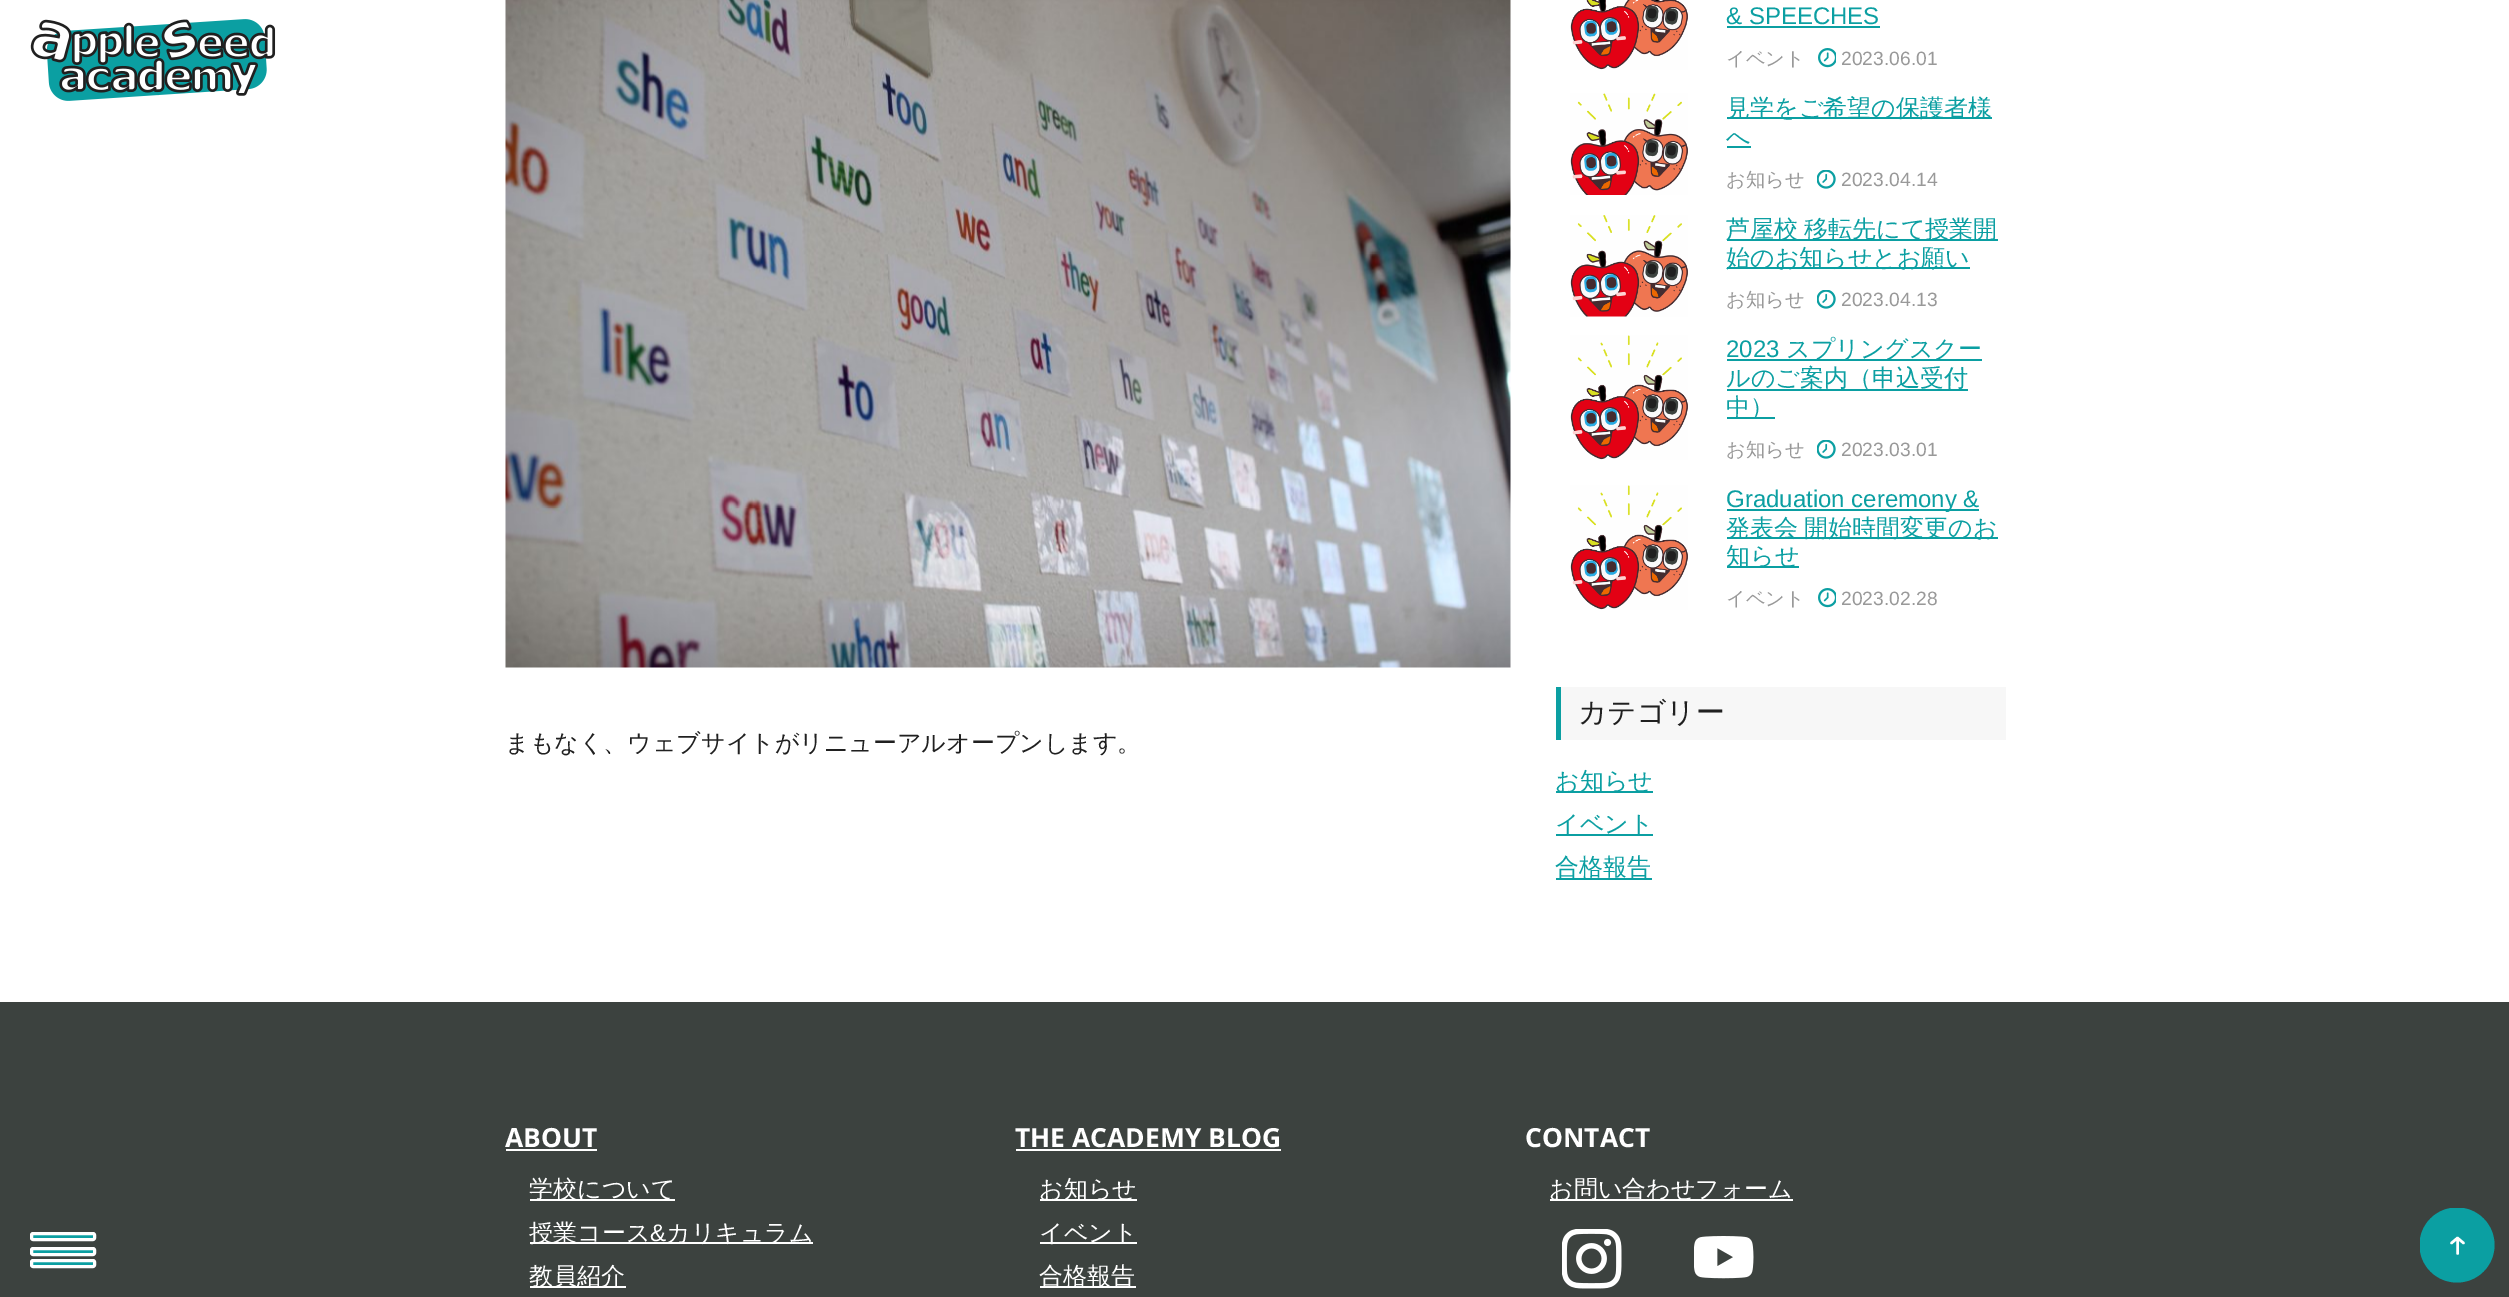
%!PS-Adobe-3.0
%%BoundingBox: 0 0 2509 1297
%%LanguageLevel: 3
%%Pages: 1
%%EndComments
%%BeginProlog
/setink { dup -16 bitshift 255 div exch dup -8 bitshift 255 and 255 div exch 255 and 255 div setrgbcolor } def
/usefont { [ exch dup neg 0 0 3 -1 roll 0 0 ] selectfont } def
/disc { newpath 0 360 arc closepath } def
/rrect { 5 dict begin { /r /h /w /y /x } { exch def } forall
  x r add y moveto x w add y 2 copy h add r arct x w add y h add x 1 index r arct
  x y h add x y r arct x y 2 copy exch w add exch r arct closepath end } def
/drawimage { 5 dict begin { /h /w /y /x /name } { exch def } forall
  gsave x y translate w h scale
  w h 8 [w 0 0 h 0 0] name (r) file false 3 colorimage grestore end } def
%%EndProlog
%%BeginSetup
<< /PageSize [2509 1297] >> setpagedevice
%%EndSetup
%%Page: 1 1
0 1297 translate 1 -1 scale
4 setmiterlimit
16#FFFFFF setink
0 0 2509 1297 rectfill
(img1.raw) 30 19 246 82 drawimage
(img2.raw) 505 0 1006 668 drawimage
/WenQuanYiZenHei-Medium 24 usefont
16#202020 setink
505 751 moveto (まもなく、ウェブサイトがリニューアルオープンします。) show
(img3.raw) 1570 0 118 70 drawimage
/LiberationSans-Regular 24 usefont
16#0B9FA2 setink
1726 24 moveto (& SPEECHES) show
1727 26 153 2 rectfill
/WenQuanYiZenHei-Medium 19.25 usefont
16#999999 setink
1726 65 moveto (イベント) show
(img4.raw) 1818 48 18 20 drawimage
/LiberationSans-Regular 19.25 usefont
1841 65 moveto (2023.06.01) show
(img5.raw) 1570 93 118 102 drawimage
16#0B9FA2 setink
1727 117 265 2 rectfill
/WenQuanYiZenHei-Medium 24 usefont
1726 116 moveto (見学をご希望の保護者様) show
1726 145 moveto (へ) show
1727 146 24 2 rectfill
/WenQuanYiZenHei-Medium 19.25 usefont
16#999999 setink
1726 186 moveto (お知らせ) show
(img6.raw) 1817 170 19 19 drawimage
/LiberationSans-Regular 19.25 usefont
1841 186 moveto (2023.04.14) show
(img7.raw) 1570 215 118 102 drawimage
16#0B9FA2 setink
1727 239 271 2 rectfill
/WenQuanYiZenHei-Medium 24 usefont
1726 237 moveto -1 0 32 (芦屋校 移転先にて授業開) widthshow
1727 267 243 2 rectfill
1726 266 moveto (始のお知らせとお願い) show
/WenQuanYiZenHei-Medium 19.25 usefont
16#999999 setink
1726 306 moveto (お知らせ) show
(img6.raw) 1817 290 19 19 drawimage
/LiberationSans-Regular 19.25 usefont
1841 306 moveto (2023.04.13) show
(img8.raw) 1570 335 118 125 drawimage
/LiberationSans-Regular 24 usefont
16#0B9FA2 setink
1726 357 moveto (2023) show
1727 359 255 2 rectfill
/WenQuanYiZenHei-Medium 24 usefont
1786 357 moveto (スプリングスクー) show
1727 389 241 2 rectfill
1726 386 moveto (ルのご案内（申込受付) show
1727 417 48 2 rectfill
1726 415 moveto (中）) show
/WenQuanYiZenHei-Medium 19.25 usefont
16#999999 setink
1726 456 moveto (お知らせ) show
(img6.raw) 1817 440 19 19 drawimage
/LiberationSans-Regular 19.25 usefont
1841 456 moveto (2023.03.01) show
(img8.raw) 1570 485 118 125 drawimage
16#0B9FA2 setink
1727 509 252 2 rectfill
/LiberationSans-Regular 24 usefont
1726 507 moveto (Graduation ceremony &) show
1727 537 271 2 rectfill
/WenQuanYiZenHei-Medium 24 usefont
1726 536 moveto -1 0 32 (発表会 開始時間変更のお) widthshow
1727 566 72 2 rectfill
1726 564 moveto (知らせ) show
/WenQuanYiZenHei-Medium 19.25 usefont
16#999999 setink
1726 605 moveto (イベント) show
(img4.raw) 1818 588 18 20 drawimage
/LiberationSans-Regular 19.25 usefont
1841 605 moveto (2023.02.28) show
16#F7F7F7 setink
1561 687 445 53 rectfill
16#0B9FA2 setink
1556 687 5 53 rectfill
/WenQuanYiZenHei-Medium 28.75 usefont
16#202020 setink
1578 722 moveto (カテゴリー) show
16#0B9FA2 setink
1556 791 97 2 rectfill
/WenQuanYiZenHei-Medium 24 usefont
1555 789 moveto (お知らせ) show
1556 834 97 2 rectfill
1555 832 moveto (イベント) show
1556 878 96 2 rectfill
1555 875 moveto (合格報告) show
16#3C423F setink
0 1002 2509 295 rectfill
16#0B9FA2 setink
31.5 1233.5 63 6 1.5 rrect gsave fill grestore
16#FFFFFF setink
3 setlinewidth
stroke
16#0B9FA2 setink
31.5 1260.5 63 6 1.5 rrect gsave fill grestore
16#FFFFFF setink
stroke
16#0B9FA2 setink
31.5 1248.5 63 6 1.5 rrect gsave fill grestore
16#FFFFFF setink
stroke
/OpenSans-Bold 26.4 usefont
505 1147 moveto (ABOUT) show
506 1149 91 2 rectfill
530 1199 145 2 rectfill
/WenQuanYiZenHei-Medium 24 usefont
529 1197 moveto (学校について) show
530 1242 283 2 rectfill
529 1241 moveto (授業コース) show
/LiberationSans-Regular 24 usefont
650 1241 moveto (&) show
/WenQuanYiZenHei-Medium 24 usefont
666 1241 moveto (カリキュラム) show
530 1286 96 2 rectfill
529 1284 moveto (教員紹介) show
/OpenSans-Bold 26.4 usefont
1015 1147 moveto (THE ACADEMY BLOG) show
1016 1149 265 2 rectfill
1040 1199 97 2 rectfill
/WenQuanYiZenHei-Medium 24 usefont
1039 1197 moveto (お知らせ) show
1040 1242 97 2 rectfill
1039 1241 moveto (イベント) show
1040 1286 96 2 rectfill
1039 1284 moveto (合格報告) show
/OpenSans-Bold 26.4 usefont
1525 1147 moveto (CONTACT) show
1550 1199 243 2 rectfill
/WenQuanYiZenHei-Medium 24 usefont
1549 1197 moveto (お問い合わせフォーム) show
(img9.raw) 1562 1229 60 60 drawimage
(img10.raw) 1694 1236 60 43 drawimage
gsave
2420 1208 75 75 rectclip
16#0B9FA2 setink
2457 1245 37.5 disc fill
grestore
2.5 setlinewidth
1 setlinecap
2457.5 1238 moveto 2457.5 1253.5 lineto 2457.5 1238 moveto 2463.5 1243 lineto 2457.5 1238 moveto 2451.5 1243 lineto stroke
showpage
%%EOF
